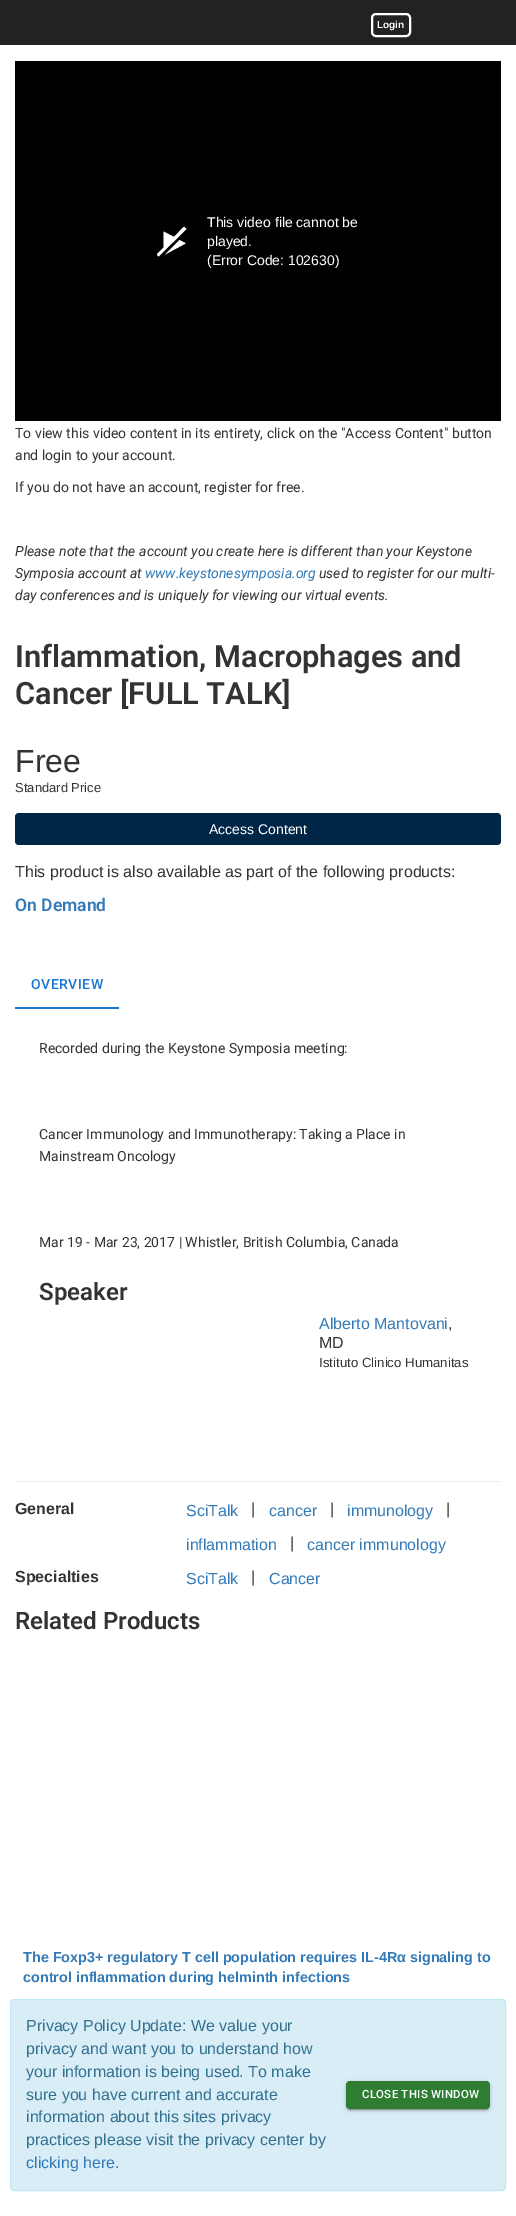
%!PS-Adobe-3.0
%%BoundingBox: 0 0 516 2216
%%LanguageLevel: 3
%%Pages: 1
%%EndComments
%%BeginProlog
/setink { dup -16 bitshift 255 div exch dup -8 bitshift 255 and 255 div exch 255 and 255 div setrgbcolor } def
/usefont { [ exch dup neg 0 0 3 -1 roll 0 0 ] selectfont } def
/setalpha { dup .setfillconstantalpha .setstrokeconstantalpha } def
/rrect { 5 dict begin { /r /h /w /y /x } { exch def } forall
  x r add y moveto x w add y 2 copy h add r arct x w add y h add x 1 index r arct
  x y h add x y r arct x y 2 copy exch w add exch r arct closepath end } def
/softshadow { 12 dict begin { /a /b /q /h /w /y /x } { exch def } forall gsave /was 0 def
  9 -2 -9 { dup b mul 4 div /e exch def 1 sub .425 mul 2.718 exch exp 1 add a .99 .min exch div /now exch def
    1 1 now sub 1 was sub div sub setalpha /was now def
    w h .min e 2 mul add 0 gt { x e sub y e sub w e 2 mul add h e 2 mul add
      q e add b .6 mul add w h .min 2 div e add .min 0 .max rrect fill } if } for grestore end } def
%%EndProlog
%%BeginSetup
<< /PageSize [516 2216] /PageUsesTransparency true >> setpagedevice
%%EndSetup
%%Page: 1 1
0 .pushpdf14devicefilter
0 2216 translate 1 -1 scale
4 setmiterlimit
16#FFFFFF setink
0 0 516 2216 rectfill
16#222222 setink
0 0 516 45 rectfill
16#FFFFFF setink
2 setlinewidth
372 14 38 22 4 rrect stroke
/LiberationSans-Bold 10 usefont
377 28 moveto (Login) show
16#000000 setink
15 61 486 360 rectfill
gsave
157 227 30 30 rectclip
16#FFFFFF setink
185.5 243.5 moveto 165 254.5 lineto 179.5 240 lineto 185 243 186 243.5 185.5 243.5 curveto closepath 184 226.5 moveto 174 237 lineto 163.5 231.5 lineto 163.5 247.5 lineto 156.5 254.5 lineto 158.5 256.5 lineto 186.5 229 lineto closepath fill
grestore
/LiberationSans-Regular 14 usefont
16#FFFFFF setink
[
    [(This video file cannot be) 207 227]
    [(played.) 207 246]
    [(\(Error Code: 102630\)) 207 265]
] { aload pop moveto show } forall
/Roboto-Regular 14 usefont
16#333333 setink
[
    [(To view this video content in its entirety, click on the "Access Content" button) 15 438]
    [(and login to your account.) 15 460]
    [(If you do not have an account, register for free.) 15 492]
] { aload pop moveto show } forall
/Roboto-Italic 14 usefont
15 556 moveto (Please note that the account you create here is different than your Keystone) show
15 578 moveto (Symposia account at) show
16#337AB7 setink
145 578 moveto (www.keystonesymposia.org) show
16#333333 setink
319 578 moveto (used to register for our multi-) show
15 600 moveto (day conferences and is uniquely for viewing our virtual events.) show
/Roboto-SemiBold 30.75 usefont
15 667 moveto (Inflammation, Macrophages and) show
15 704 moveto (Cancer [FULL TALK]) show
/LiberationSans-Regular 32 usefont
15 772 moveto (Free) show
/LiberationSans-Regular 13 usefont
15 792 moveto (Standard Price) show
16#002647 setink
15 813 486 32 4 rrect fill
/LiberationSans-Regular 14 usefont
16#FFFFFF setink
209 834 moveto (Access Content) show
/LiberationSans-Regular 16 usefont
16#333333 setink
15 877 moveto (This product is also available as part of the following products:) show
/Roboto-SemiBold 17.5 usefont
16#337AB7 setink
15 911 moveto (On Demand) show
/Roboto-Medium 14 usefont
16#1976D2 setink
31 989 moveto 0.5 0 (OVERVIEW) ashow
15 1007 104 2 rectfill
/Roboto-Regular 14 usefont
16#333333 setink
[
    [(Recorded during the Keystone Symposia meeting:) 39 1053]
    [(Cancer Immunology and Immunotherapy: Taking a Place in) 39 1139]
    [(Mainstream Oncology) 39 1161]
    [(Mar 19 - Mar 23, 2017 | Whistler, British Columbia, Canada) 39 1247]
] { aload pop moveto show } forall
/Roboto-SemiBold 24 usefont
39 1300 moveto (Speaker) show
/LiberationSans-Regular 16 usefont
16#337AB7 setink
319 1329 moveto (Alberto Mantovani) show
16#333333 setink
448 1329 moveto (,) show
319 1348 moveto (MD) show
/LiberationSans-Regular 13.25 usefont
319 1367 moveto (Istituto Clinico Humanitas) show
16#EEEEEE setink
15 1481 486 1 rectfill
/LiberationSans-Bold 16 usefont
16#333333 setink
15 1514 moveto (General) show
/LiberationSans-Regular 16 usefont
16#337AB7 setink
186 1516 moveto (SciTalk) show
16#333333 setink
251 1514 moveto (|) show
16#337AB7 setink
269 1516 moveto (cancer) show
16#333333 setink
330 1514 moveto (|) show
16#337AB7 setink
347 1516 moveto (immunology) show
16#333333 setink
446 1514 moveto (|) show
16#337AB7 setink
186 1550 moveto (inflammation) show
16#333333 setink
290 1548 moveto (|) show
16#337AB7 setink
307 1550 moveto (cancer immunology) show
/LiberationSans-Bold 16 usefont
16#333333 setink
15 1582 moveto (Specialties) show
/LiberationSans-Regular 16 usefont
16#337AB7 setink
186 1584 moveto (SciTalk) show
16#333333 setink
251 1582 moveto (|) show
16#337AB7 setink
269 1584 moveto (Cancer) show
/Roboto-SemiBold 24 usefont
16#333333 setink
15 1629 moveto (Related Products) show
/LiberationSans-Bold 14.4 usefont
16#337AB7 setink
23 1962 moveto (The Foxp3+ regulatory T cell population requires IL-4Rα signaling to) show
23 1982 moveto (control inflammation during helminth infections) show
16#D9EDF7 setink
10.5 1999.5 495 191 3.5 rrect gsave fill grestore
16#BCE8F1 setink
1 setlinewidth
stroke
/LiberationSans-Regular 16 usefont
16#31708F setink
[
    [(Privacy Policy Update: We value your) 26 2031]
    [(privacy and want you to understand how) 26 2054]
    [(your information is being used. To make) 26 2077]
    [(sure you have current and accurate) 26 2100]
    [(information about this sites privacy) 26 2122]
    [(practices please visit the privacy center by) 26 2145]
] { aload pop moveto show } forall
16#337AB7 setink
26 2168 moveto (clicking here) show
16#31708F setink
115 2168 moveto (.) show
16#000000 setink
346 2082 144 28 4 2.5 0.12 softshadow
346 2083 144 28 4 1 0.14 softshadow
348 2086 140 24 2 0.5 0.2 softshadow
16#2E7D32 setink
346 2081 144 28 4 rrect fill
/Roboto-Medium 11.4 usefont
16#FFFFFF setink
362 2098 moveto 0.3 0 (CLOSE THIS WINDOW) ashow
.poppdf14devicefilter showpage
%%EOF
